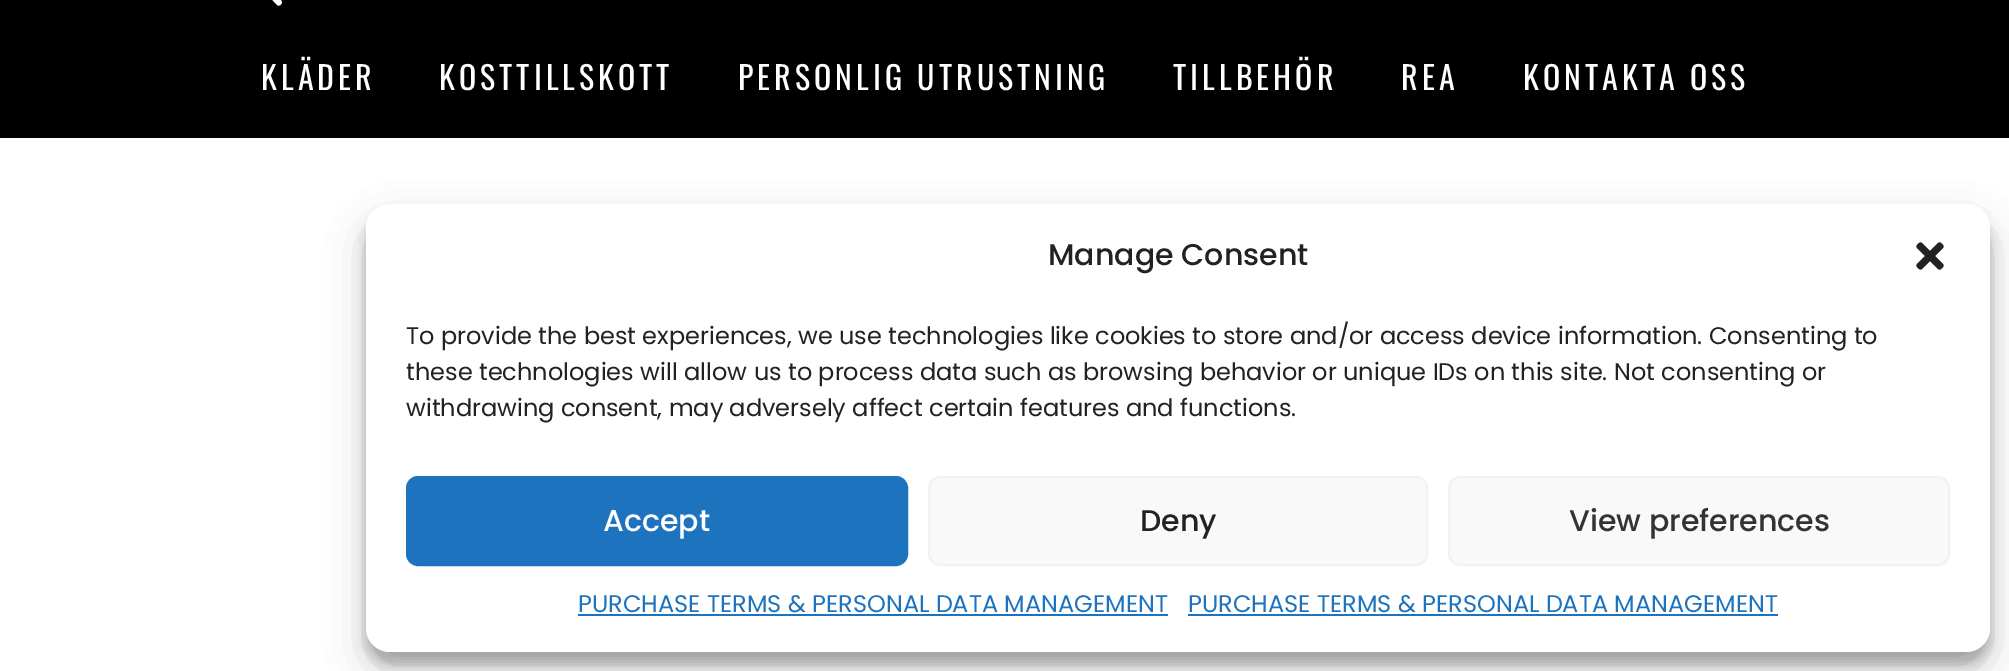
%!PS-Adobe-3.0
%%BoundingBox: 0 0 2009 671
%%LanguageLevel: 3
%%Pages: 1
%%EndComments
%%BeginProlog
/setink { dup -16 bitshift 255 div exch dup -8 bitshift 255 and 255 div exch 255 and 255 div setrgbcolor } def
/usefont { [ exch dup neg 0 0 3 -1 roll 0 0 ] selectfont } def
/setalpha { dup .setfillconstantalpha .setstrokeconstantalpha } def
/rrect { 5 dict begin { /r /h /w /y /x } { exch def } forall
  x r add y moveto x w add y 2 copy h add r arct x w add y h add x 1 index r arct
  x y h add x y r arct x y 2 copy exch w add exch r arct closepath end } def
/softshadow { 12 dict begin { /a /b /q /h /w /y /x } { exch def } forall gsave /was 0 def
  9 -2 -9 { dup b mul 4 div /e exch def 1 sub .425 mul 2.718 exch exp 1 add a .99 .min exch div /now exch def
    1 1 now sub 1 was sub div sub setalpha /was now def
    w h .min e 2 mul add 0 gt { x e sub y e sub w e 2 mul add h e 2 mul add
      q e add b .6 mul add w h .min 2 div e add .min 0 .max rrect fill } if } for grestore end } def
/drawimage { 5 dict begin { /h /w /y /x /name } { exch def } forall
  gsave x y translate w h scale
  w h 8 [w 0 0 h 0 0] name (r) file false 3 colorimage grestore end } def
%%EndProlog
%%BeginSetup
<< /PageSize [2009 671] /PageUsesTransparency true >> setpagedevice
%%EndSetup
%%Page: 1 1
0 .pushpdf14devicefilter
0 671 translate 1 -1 scale
4 setmiterlimit
16#FFFFFF setink
0 0 2009 671 rectfill
16#000000 setink
0 0 2009 138 rectfill
(img1.raw) 272 0 10 6 drawimage
/Oswald-Regular 32 usefont
16#FFFFFF setink
261 90 moveto 4 0 (KLÄDER) ashow
439 90 moveto 4 0 (KOSTTILLSKOTT) ashow
738 90 moveto 4 0 (PERSONLIG UTRUSTNING) ashow
1173 90 moveto 4 0 (TILLBEHÖR) ashow
1401 90 moveto 4 0 (REA) ashow
1523 90 moveto 4 0 (KONTAKTA OSS) ashow
16#000000 setink
366 216 1624 448 24 6 0.23 softshadow
366 224 1624 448 24 20 0.19 softshadow
16#FFFFFF setink
366 204 1624 448 24 rrect fill
/Poppins-Medium 30 usefont
16#222222 setink
1048 265 moveto (Manage Consent) show
(img2.raw) 1916 242 28 28 drawimage
/Poppins-Regular 24 usefont
[
    [(To provide the best experiences, we use technologies like cookies to store and/or access device information. Consenting to) 406 344]
    [(these technologies will allow us to process data such as browsing behavior or unique IDs on this site. Not consenting or) 406 380]
    [(withdrawing consent, may adversely affect certain features and functions.) 406 416]
] { aload pop moveto show } forall
16#1E73BE setink
407 477 500 88 11 rrect gsave fill grestore
2 setlinewidth
stroke
/Poppins-Medium 30 usefont
16#FFFFFF setink
603 531 moveto (Accept) show
16#F9F9F9 setink
929 477 498 88 11 rrect gsave fill grestore
16#F2F2F2 setink
stroke
16#222222 setink
1140 531 moveto (Deny) show
16#F9F9F9 setink
1449 477 500 88 11 rrect gsave fill grestore
16#F2F2F2 setink
stroke
16#333333 setink
1569 531 moveto (View preferences) show
/Poppins-Regular 24 usefont
16#1E73BE setink
578 612 moveto (PURCHASE TERMS & PERSONAL DATA MANAGEMENT) show
578 614 590 2 rectfill
1188 612 moveto (PURCHASE TERMS & PERSONAL DATA MANAGEMENT) show
1188 614 590 2 rectfill
.poppdf14devicefilter showpage
%%EOF
